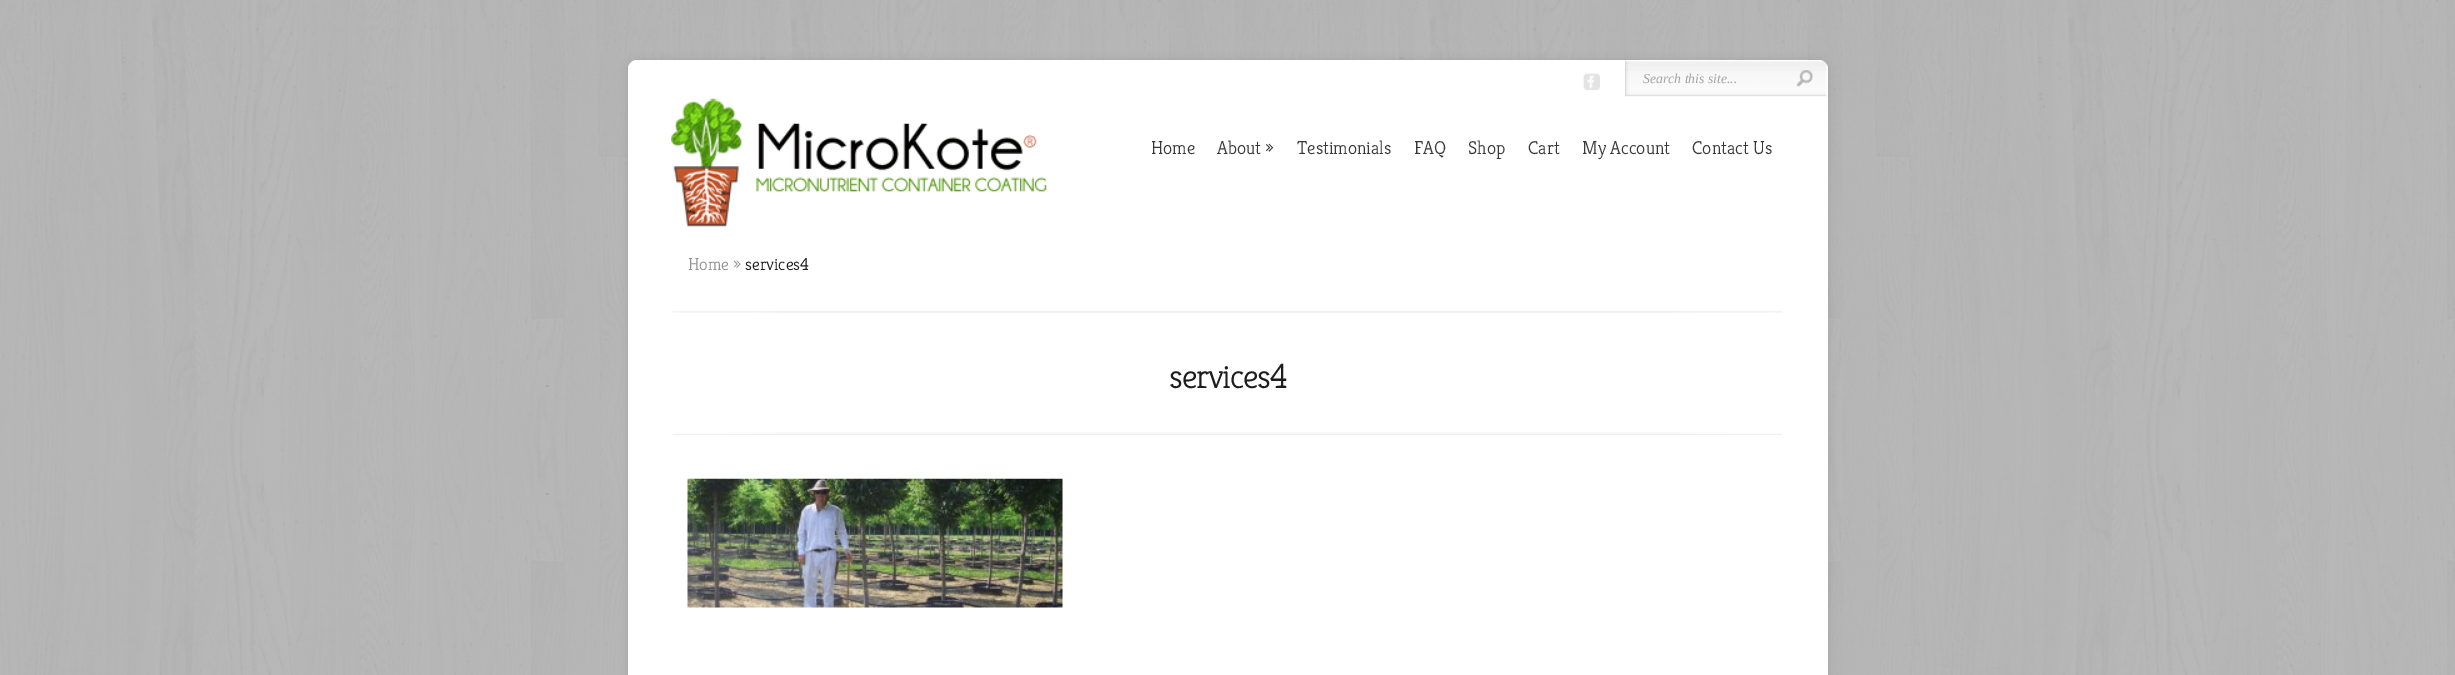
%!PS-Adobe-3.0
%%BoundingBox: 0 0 2455 675
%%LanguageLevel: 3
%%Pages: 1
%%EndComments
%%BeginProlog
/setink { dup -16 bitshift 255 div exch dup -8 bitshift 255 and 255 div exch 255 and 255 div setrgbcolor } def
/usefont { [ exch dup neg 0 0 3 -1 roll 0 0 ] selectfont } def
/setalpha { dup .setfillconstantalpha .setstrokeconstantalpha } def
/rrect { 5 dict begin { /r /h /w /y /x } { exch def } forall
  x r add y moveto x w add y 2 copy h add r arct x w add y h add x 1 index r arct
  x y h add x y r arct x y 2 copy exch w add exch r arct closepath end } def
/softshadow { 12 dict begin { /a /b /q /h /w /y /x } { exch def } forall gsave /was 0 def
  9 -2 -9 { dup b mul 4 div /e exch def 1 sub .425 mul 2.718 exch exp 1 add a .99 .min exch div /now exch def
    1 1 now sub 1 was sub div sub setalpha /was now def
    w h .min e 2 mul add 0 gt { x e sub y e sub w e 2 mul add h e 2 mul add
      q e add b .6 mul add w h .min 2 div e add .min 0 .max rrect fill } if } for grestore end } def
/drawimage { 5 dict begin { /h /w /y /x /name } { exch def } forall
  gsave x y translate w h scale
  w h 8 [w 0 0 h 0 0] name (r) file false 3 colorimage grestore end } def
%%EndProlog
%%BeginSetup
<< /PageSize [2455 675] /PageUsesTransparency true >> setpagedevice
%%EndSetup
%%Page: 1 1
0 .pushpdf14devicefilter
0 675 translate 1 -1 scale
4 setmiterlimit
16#F4F4F4 setink
0 0 2455 675 rectfill
(img1.raw) 0 0 2455 675 drawimage
16#000000 setink
628 60 1200 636 9 4 0.1 softshadow
16#FFFFFF setink
628 60 1200 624 9 rrect fill
(img2.raw) 1583 73 17 17 drawimage
(img3.raw) 1625 61 202 36 drawimage
/LiberationSerif-Italic 13.75 usefont
16#A3A3A3 setink
1643 83 moveto (Search this site...) show
(img4.raw) 1796 70 18 17 drawimage
(img5.raw) 671 98 376 129 drawimage
/Kreon-Light 18.75 usefont
16#393939 setink
[
    [(Home) 1151 154]
    [(About ») 1217 154]
    [(Testimonials) 1297 154]
    [(FAQ) 1414 154]
    [(Shop) 1468 154]
    [(Cart) 1528 154]
    [(My Account) 1582 154]
    [(Contact Us) 1692 154]
] { aload pop moveto show } forall
/Kreon-Light 17.5 usefont
16#929292 setink
688 270 moveto (Home ») show
16#1D1D1D setink
745 270 moveto (services4) show
(img6.raw) 672 311 1111 2 drawimage
(img7.raw) 672 432 1111 3 drawimage
/Kreon-Light 35 usefont
1169 388 moveto -1.25 0 (services4) ashow
(img8.raw) 687 478 376 130 drawimage
.poppdf14devicefilter showpage
%%EOF
